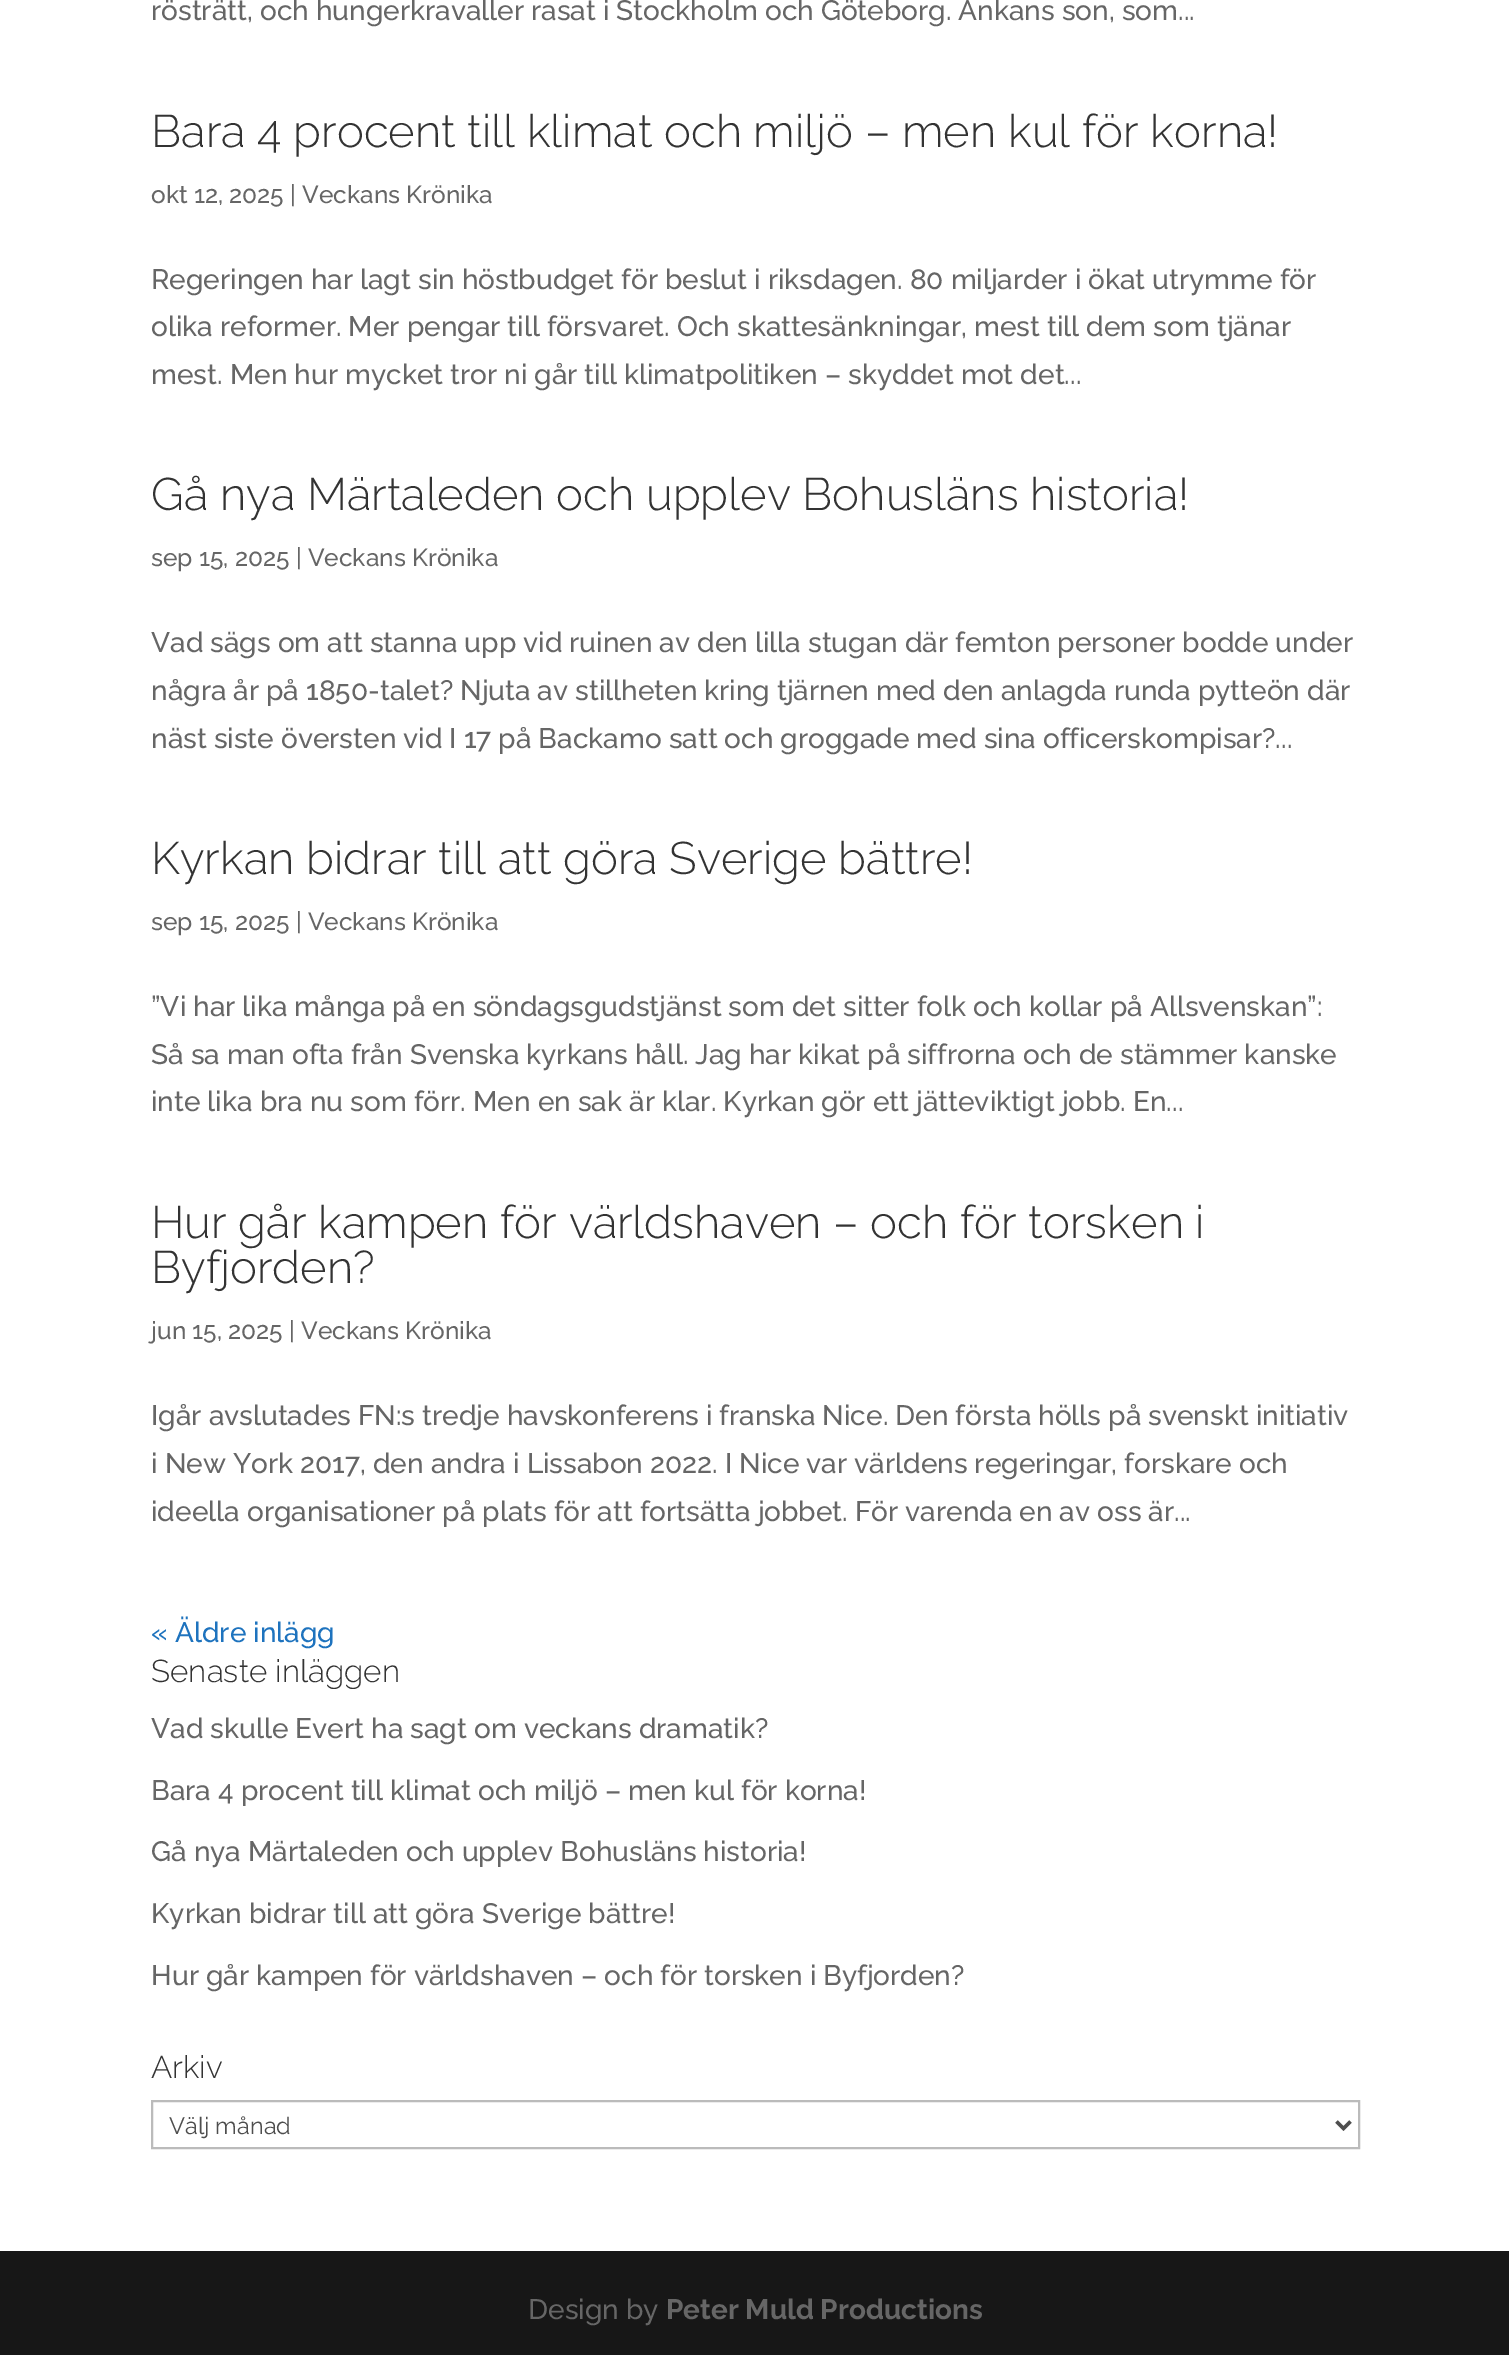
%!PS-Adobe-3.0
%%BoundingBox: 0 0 1509 2355
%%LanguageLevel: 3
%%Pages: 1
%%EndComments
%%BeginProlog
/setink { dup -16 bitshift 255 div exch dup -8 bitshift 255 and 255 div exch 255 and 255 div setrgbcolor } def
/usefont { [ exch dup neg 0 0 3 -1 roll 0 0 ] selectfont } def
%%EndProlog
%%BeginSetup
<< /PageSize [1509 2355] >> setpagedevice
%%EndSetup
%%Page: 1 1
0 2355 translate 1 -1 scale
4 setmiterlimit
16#FFFFFF setink
0 0 1509 2355 rectfill
/Raleway-Medium 28 usefont
16#666666 setink
151 20 moveto (rösträtt, och hungerkravaller rasat i Stockholm och Göteborg. Änkans son, som...) show
/Raleway-Light 45.5 usefont
16#333333 setink
151 147 moveto (Bara 4 procent till klimat och miljö – men kul för korna!) show
/Raleway-Medium 24.5 usefont
16#666666 setink
151 203 moveto (okt 12, 2025 | Veckans Krönika) show
/Raleway-Medium 28 usefont
[
    [(Regeringen har lagt sin höstbudget för beslut i riksdagen. 80 miljarder i ökat utrymme för) 151 289]
    [(olika reformer. Mer pengar till försvaret. Och skattesänkningar, mest till dem som tjänar) 151 336]
    [(mest. Men hur mycket tror ni går till klimatpolitiken – skyddet mot det...) 151 384]
] { aload pop moveto show } forall
/Raleway-Light 45.5 usefont
16#333333 setink
151 510 moveto (Gå nya Märtaleden och upplev Bohusläns historia!) show
/Raleway-Medium 24.5 usefont
16#666666 setink
151 566 moveto (sep 15, 2025 | Veckans Krönika) show
/Raleway-Medium 28 usefont
[
    [(Vad sägs om att stanna upp vid ruinen av den lilla stugan där femton personer bodde under) 151 652]
    [(några år på 1850-talet? Njuta av stillheten kring tjärnen med den anlagda runda pytteön där) 151 700]
    [(näst siste översten vid I 17 på Backamo satt och groggade med sina officerskompisar?...) 151 748]
] { aload pop moveto show } forall
/Raleway-Light 45.5 usefont
16#333333 setink
151 874 moveto (Kyrkan bidrar till att göra Sverige bättre!) show
/Raleway-Medium 24.5 usefont
16#666666 setink
151 930 moveto (sep 15, 2025 | Veckans Krönika) show
/Raleway-Medium 28 usefont
[
    [(”Vi har lika många på en söndagsgudstjänst som det sitter folk och kollar på Allsvenskan”:) 151 1016]
    [(Så sa man ofta från Svenska kyrkans håll. Jag har kikat på siffrorna och de stämmer kanske) 151 1064]
    [(inte lika bra nu som förr. Men en sak är klar. Kyrkan gör ett jätteviktigt jobb. En...) 151 1111]
] { aload pop moveto show } forall
/Raleway-Light 45.5 usefont
16#333333 setink
151 1238 moveto (Hur går kampen för världshaven – och för torsken i) show
151 1283 moveto (Byfjorden?) show
/Raleway-Medium 24.5 usefont
16#666666 setink
151 1339 moveto (jun 15, 2025 | Veckans Krönika) show
/Raleway-Medium 28 usefont
[
    [(Igår avslutades FN:s tredje havskonferens i franska Nice. Den första hölls på svenskt initiativ) 151 1425]
    [(i New York 2017, den andra i Lissabon 2022. I Nice var världens regeringar, forskare och) 151 1473]
    [(ideella organisationer på plats för att fortsätta jobbet. För varenda en av oss är...) 151 1521]
] { aload pop moveto show } forall
16#1E73BE setink
151 1642 moveto (« Äldre inlägg) show
/Raleway-Light 31.5 usefont
16#333333 setink
151 1682 moveto (Senaste inläggen) show
/Raleway-Medium 28 usefont
16#666666 setink
[
    [(Vad skulle Evert ha sagt om veckans dramatik?) 151 1738]
    [(Bara 4 procent till klimat och miljö – men kul för korna!) 151 1800]
    [(Gå nya Märtaleden och upplev Bohusläns historia!) 151 1861]
    [(Kyrkan bidrar till att göra Sverige bättre!) 151 1923]
    [(Hur går kampen för världshaven – och för torsken i Byfjorden?) 151 1985]
] { aload pop moveto show } forall
/Raleway-Light 31.5 usefont
16#333333 setink
151 2078 moveto (Arkiv) show
16#BBBBBB setink
2 setlinewidth
152 2101 1207 47 rectstroke
16#4E4E4E setink
3.5 setlinewidth
1336.5 2121.5 moveto 1343.5 2128.5 lineto 1350.5 2121.5 lineto stroke
/Raleway-Regular 23.5 usefont
169 2134 moveto (Välj månad) show
16#171717 setink
0 2251 1509 104 rectfill
/Raleway-Medium 28 usefont
16#666666 setink
528 2319 moveto (Design by) show
/Raleway-Bold 28 usefont
666 2319 moveto (Peter Muld Productions) show
showpage
%%EOF
